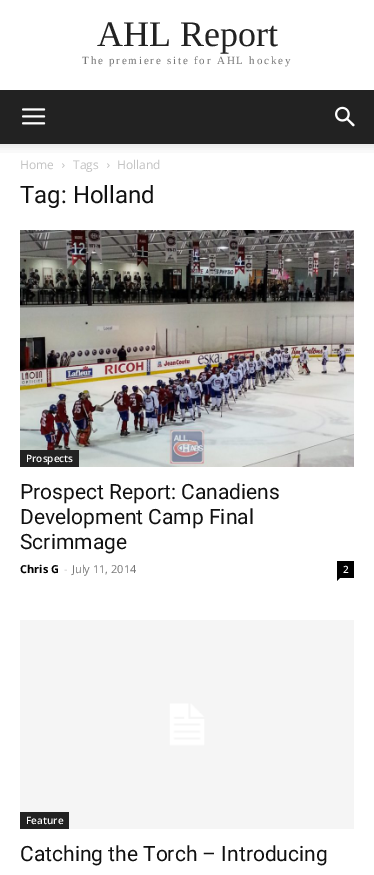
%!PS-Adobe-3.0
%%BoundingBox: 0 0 374 875
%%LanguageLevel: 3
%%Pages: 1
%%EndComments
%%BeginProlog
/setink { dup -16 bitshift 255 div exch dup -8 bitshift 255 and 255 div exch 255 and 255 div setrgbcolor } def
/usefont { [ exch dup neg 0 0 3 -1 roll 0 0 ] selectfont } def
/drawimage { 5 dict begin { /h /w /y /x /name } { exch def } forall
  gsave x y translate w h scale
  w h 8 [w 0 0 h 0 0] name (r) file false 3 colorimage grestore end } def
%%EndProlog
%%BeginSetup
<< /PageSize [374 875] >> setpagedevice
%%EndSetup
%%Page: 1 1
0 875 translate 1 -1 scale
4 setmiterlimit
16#FFFFFF setink
0 0 374 875 rectfill
/LiberationSerif-Regular 36 usefont
16#222222 setink
97 46 moveto (AHL Report) show
/LiberationSerif-Regular 11 usefont
16#767676 setink
82 64 moveto 1.8 0 (The premiere site for AHL hockey) ashow
16#222222 setink
0 90 374 54 rectfill
(img1.raw) 22 108 24 17 drawimage
(img2.raw) 335 106 20 21 drawimage
(img3.raw) 0 144 374 9 drawimage
/OpenSans-Regular 12 usefont
16#C3C3C3 setink
20 169 moveto (Home) show
(img4.raw) 62 163 3 5 drawimage
73 169 moveto (Tags) show
(img4.raw) 107 163 3 5 drawimage
117 169 moveto (Holland) show
/Roboto-Regular 24 usefont
16#111111 setink
20 203 moveto (Tag: Holland) show
(img5.raw) 20 230 334 237 drawimage
16#222222 setink
20 450 59 17 rectfill
/OpenSans-SemiBold 10 usefont
16#FFFFFF setink
26 462 moveto (Prospects) show
/Roboto-Regular 21 usefont
16#111111 setink
[
    [(Prospect Report: Canadiens) 20 499]
    [(Development Camp Final) 20 524]
    [(Scrimmage) 20 549]
] { aload pop moveto show } forall
/OpenSans-Bold 11 usefont
16#000000 setink
20 573 moveto (Chris G) show
/OpenSans-Regular 11 usefont
16#CCCCCC setink
64 573 moveto (-) show
16#767676 setink
72 573 moveto (July 11, 2014) show
16#000000 setink
337 561 17 17 rectfill
/OpenSans-SemiBold 10 usefont
16#FFFFFF setink
343 573 moveto (2) show
16#000000 setink
337 578 moveto 340 578 lineto 337 581 lineto closepath fill
(img6.raw) 20 620 334 209 drawimage
16#222222 setink
20 812 49 17 rectfill
16#FFFFFF setink
26 824 moveto (Feature) show
/Roboto-Regular 21 usefont
16#111111 setink
20 861 moveto (Catching the Torch – Introducing) show
showpage
%%EOF
